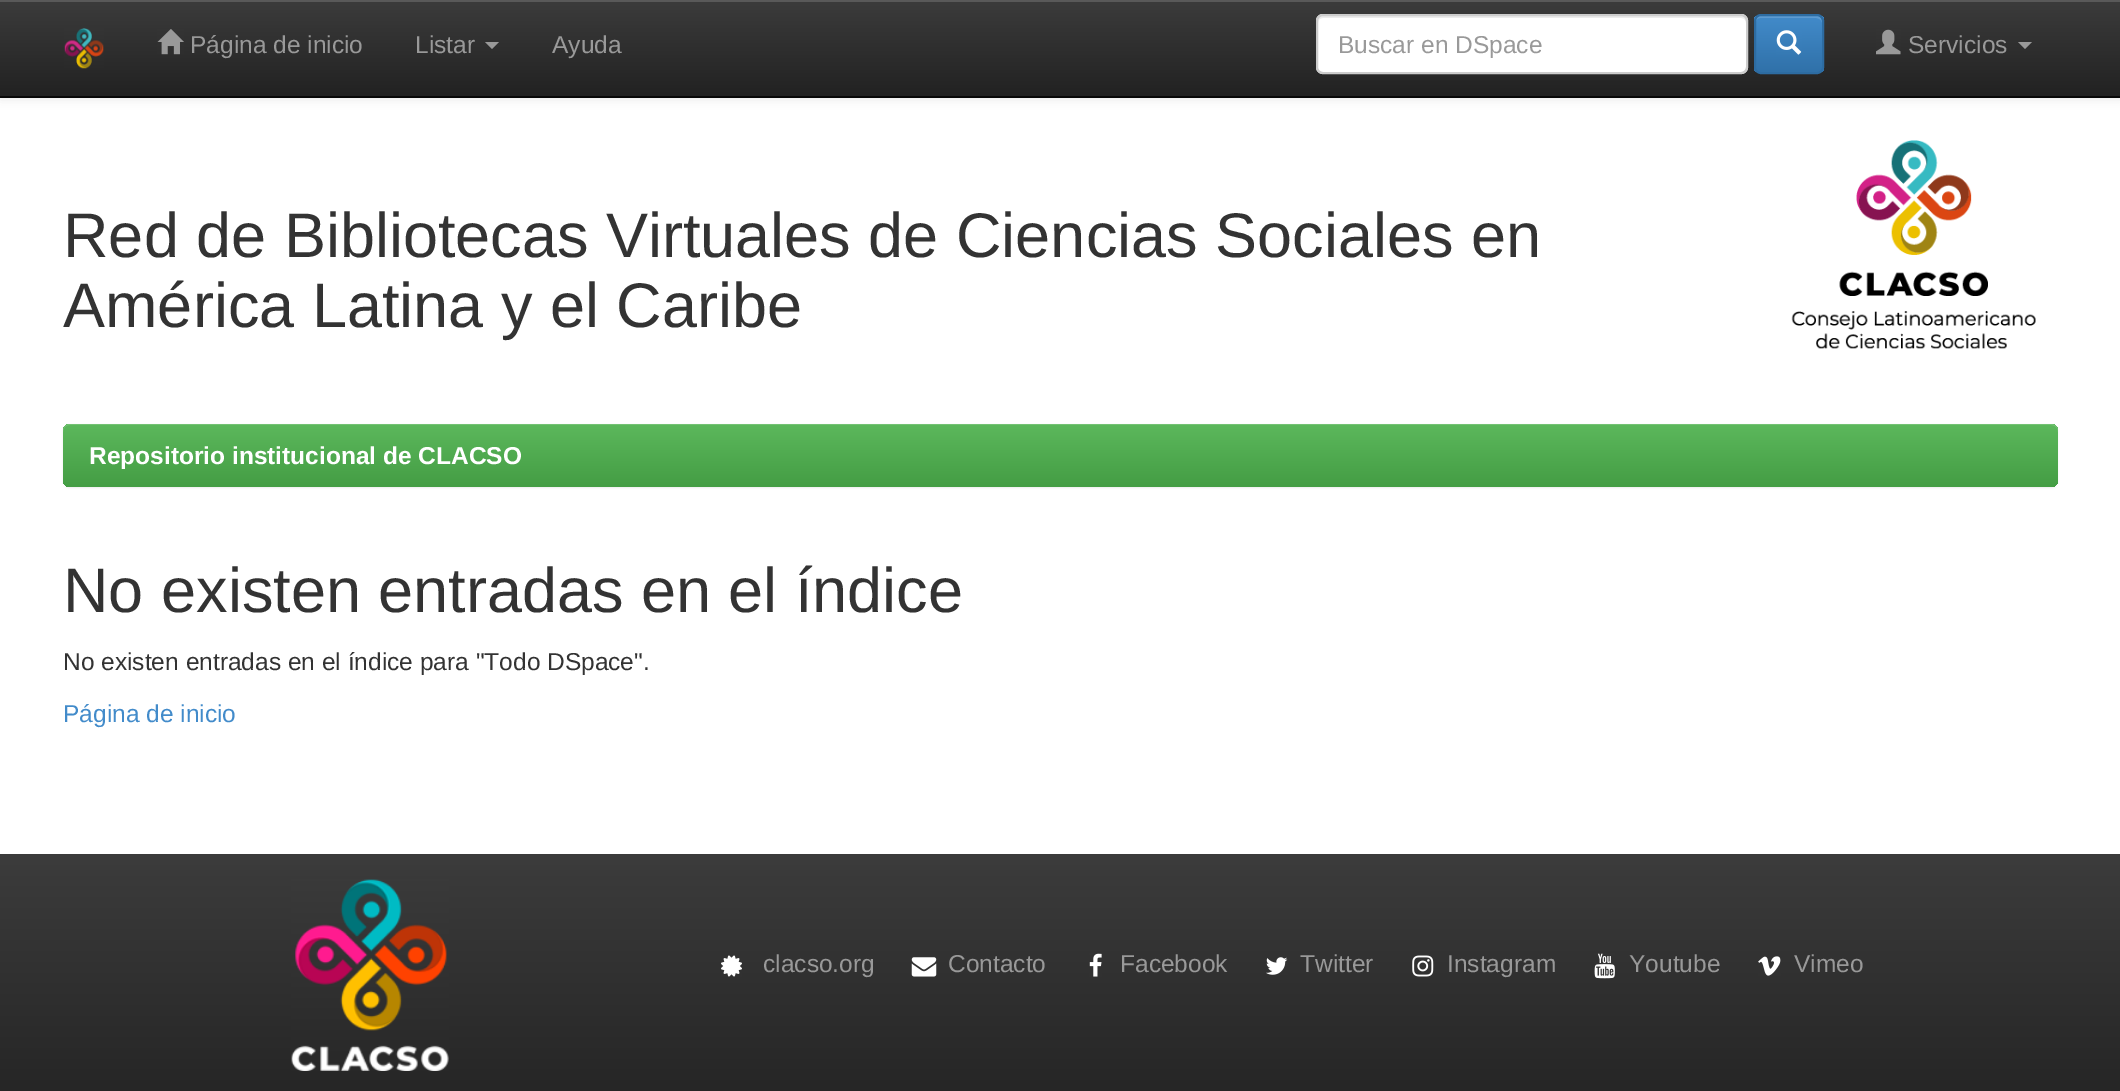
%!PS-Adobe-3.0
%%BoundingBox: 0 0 2120 1091
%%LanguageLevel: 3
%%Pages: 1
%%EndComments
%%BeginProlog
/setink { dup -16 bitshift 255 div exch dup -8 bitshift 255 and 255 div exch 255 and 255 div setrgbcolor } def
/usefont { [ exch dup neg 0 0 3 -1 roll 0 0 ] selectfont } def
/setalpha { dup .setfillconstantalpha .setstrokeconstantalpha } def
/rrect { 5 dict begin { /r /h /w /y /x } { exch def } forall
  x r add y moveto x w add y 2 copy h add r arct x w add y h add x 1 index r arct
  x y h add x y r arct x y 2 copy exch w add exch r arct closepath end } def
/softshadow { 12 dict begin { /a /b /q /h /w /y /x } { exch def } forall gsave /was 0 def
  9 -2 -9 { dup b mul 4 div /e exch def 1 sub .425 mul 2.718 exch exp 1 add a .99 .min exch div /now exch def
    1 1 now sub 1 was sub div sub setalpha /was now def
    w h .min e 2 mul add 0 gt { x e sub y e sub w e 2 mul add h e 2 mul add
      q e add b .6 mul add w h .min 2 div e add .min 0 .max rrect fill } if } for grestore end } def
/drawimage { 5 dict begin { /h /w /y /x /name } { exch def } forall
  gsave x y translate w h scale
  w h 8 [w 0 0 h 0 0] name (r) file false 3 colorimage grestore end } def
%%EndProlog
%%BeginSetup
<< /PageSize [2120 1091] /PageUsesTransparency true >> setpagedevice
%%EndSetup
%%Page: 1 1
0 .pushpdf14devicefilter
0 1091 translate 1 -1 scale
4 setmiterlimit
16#FFFFFF setink
0 0 2120 1091 rectfill
16#000000 setink
0 2 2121 98 0 4.5 0.07 softshadow
gsave 0 2 moveto 2120 2 lineto 2120 96 lineto 0 96 lineto closepath clip newpath
<< /ShadingType 2 /ColorSpace /DeviceRGB /Coords [1061 0 1061 96] /Extend [true true] /Function << /FunctionType 2 /Domain [0 1] /C0 [0.235 0.235 0.235] /C1 [0.133 0.133 0.133] /N 1 >> >> shfill grestore
16#595959 setink
0 0 2120 2 rectfill
16#080808 setink
0 96 2120 2 rectfill
(img1.raw) 64 28 40 41 drawimage
(img2.raw) 157 29 27 26 drawimage
/LiberationSans-Regular 24.5 usefont
16#999999 setink
190 53 moveto (Página de inicio) show
415 53 moveto (Listar) show
485 42 moveto 499 42 lineto 492 49 lineto closepath fill
552 53 moveto (Ayuda) show
16#FFFFFF setink
1316 14 432 60 7 rrect fill
16#ECECEC setink
1323 18 moveto 1741 18 lineto 1744 18 1746 20 1746 23 curveto 1746 68 lineto 1746 71 lineto 1746 70 1747 68 1747 67 curveto 1747 21 lineto 1747 18 1745 16 1742 16 curveto 1323 16 lineto 1320 16 1318 18 1318 21 curveto 1318 23 lineto 1318 20 1320 18 1323 18 curveto closepath fill
16#CCCCCC setink
2 setlinewidth
1317 15 430 58 6 rrect stroke
16#999999 setink
1338 53 moveto (Buscar en DSpace) show
gsave
1754 14 70 60 7 rrect clip newpath
gsave 1754 16 moveto 1824 16 lineto 1824 72 lineto 1754 72 lineto closepath clip newpath
<< /ShadingType 2 /ColorSpace /DeviceRGB /Coords [1789 16 1789 72] /Extend [true true] /Function << /FunctionType 2 /Domain [0 1] /C0 [0.259 0.545 0.792] /C1 [0.188 0.443 0.663] /N 1 >> >> shfill grestore
grestore
0.15 setalpha
16#FFFFFF setink
1760 18 moveto 1816 18 lineto 1819 18 1822 20 1822 23 curveto 1822 14 1815 16 1808 16 curveto 1770 16 lineto 1762 16 1755 14 1755 23 curveto 1755 20 1758 18 1760 18 curveto closepath fill
1 setalpha
16#2D6CA2 setink
1755 15 68 58 6 rrect stroke
(img3.raw) 1776 30 26 25 drawimage
(img4.raw) 1876 29 25 26 drawimage
16#999999 setink
1908 53 moveto (Servicios) show
2018 42 moveto 2032 42 lineto 2025 49 lineto closepath fill
/LiberationSans-Regular 63 usefont
16#333333 setink
63 257 moveto (Red de Bibliotecas Virtuales de Ciencias Sociales en) show
63 327 moveto (América Latina y el Caribe) show
(img5.raw) 1791 140 245 209 drawimage
16#000000 setink
63 425 1995 63 7 1 0.07 softshadow
gsave 63 424 1995 63 7 rrect clip newpath
<< /ShadingType 2 /ColorSpace /DeviceRGB /Coords [1061 423 1061 487] /Extend [true true] /Function << /FunctionType 2 /Domain [0 1] /C0 [0.361 0.722 0.361] /C1 [0.267 0.616 0.267] /N 1 >> >> shfill grestore
0.15 setalpha
16#FFFFFF setink
70 425 moveto 2051 425 lineto 2055 425 2058 428 2058 432 curveto 2058 431 lineto 2058 427 2055 424 2051 424 curveto 70 424 lineto 66 424 63 427 63 431 curveto 63 432 lineto 63 428 66 425 70 425 curveto closepath fill
/LiberationSans-Bold 24.5 usefont
1 setalpha
89 464 moveto (Repositorio institucional de CLACSO) show
/LiberationSans-Regular 63 usefont
16#333333 setink
63 612 moveto (No existen entradas en el índice) show
/LiberationSans-Regular 24.5 usefont
63 670 moveto (No existen entradas en el índice para "Todo DSpace".) show
16#428BCA setink
63 722 moveto (Página de inicio) show
gsave 0 854 moveto 2120 854 lineto 2120 1091 lineto 0 1091 lineto closepath clip newpath
<< /ShadingType 2 /ColorSpace /DeviceRGB /Coords [1061 854 1061 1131] /Extend [true true] /Function << /FunctionType 2 /Domain [0 1] /C0 [0.235 0.235 0.235] /C1 [0.133 0.133 0.133] /N 1 >> >> shfill grestore
(img6.raw) 291 879 158 192 drawimage
(img7.raw) 721 955 21 22 drawimage
16#999999 setink
763 972 moveto (clacso.org) show
(img8.raw) 911 957 26 20 drawimage
948 972 moveto (Contacto) show
(img9.raw) 1089 953 13 24 drawimage
1120 972 moveto (Facebook) show
(img10.raw) 1266 957 22 18 drawimage
1300 972 moveto (Twitter) show
(img11.raw) 1412 955 22 22 drawimage
1447 972 moveto (Instagram) show
(img12.raw) 1594 953 21 26 drawimage
1629 972 moveto (Youtube) show
(img13.raw) 1758 956 23 20 drawimage
1794 972 moveto (Vimeo) show
.poppdf14devicefilter showpage
%%EOF
